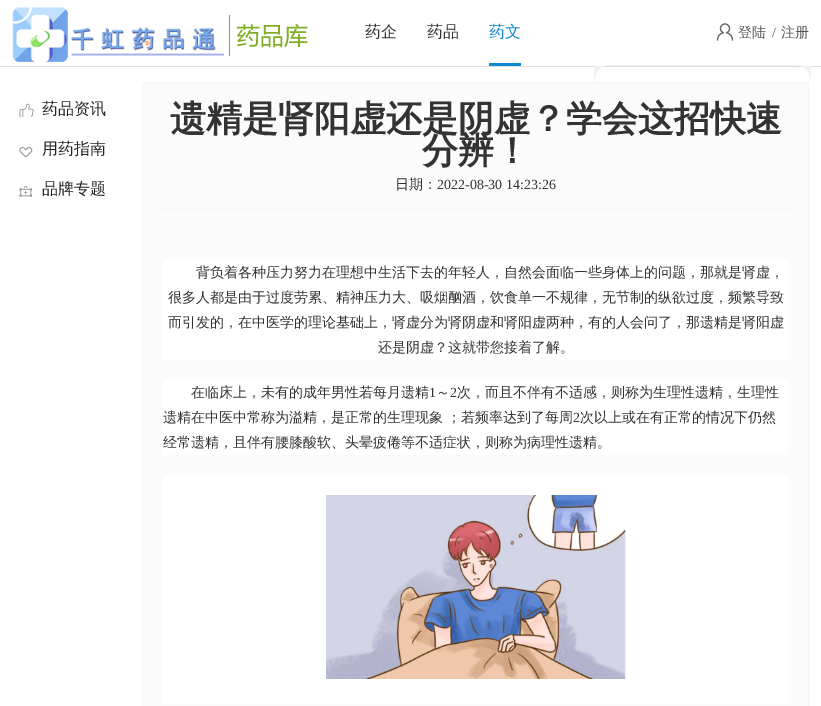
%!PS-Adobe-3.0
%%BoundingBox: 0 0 821 706
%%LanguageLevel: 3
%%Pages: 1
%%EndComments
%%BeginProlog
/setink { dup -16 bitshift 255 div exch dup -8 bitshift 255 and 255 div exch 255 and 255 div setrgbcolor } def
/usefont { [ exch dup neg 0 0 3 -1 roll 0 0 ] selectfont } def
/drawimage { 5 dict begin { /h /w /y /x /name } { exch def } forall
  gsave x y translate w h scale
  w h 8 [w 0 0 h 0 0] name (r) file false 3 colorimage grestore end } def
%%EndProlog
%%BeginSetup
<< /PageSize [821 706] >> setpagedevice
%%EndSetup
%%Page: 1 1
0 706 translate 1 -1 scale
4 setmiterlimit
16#FFFFFF setink
0 0 821 706 rectfill
16#DDDDDD setink
0 66 821 1 rectfill
(img1.raw) 12 6 296 56 drawimage
/WenQuanYiZenHei-Medium 16 usefont
16#333333 setink
365 37 moveto (药企) show
427 37 moveto (药品) show
16#0E89D1 setink
489 63 32 3 rectfill
489 37 moveto (药文) show
(img2.raw) 716 23 18 18 drawimage
/WenQuanYiZenHei-Medium 14 usefont
16#555555 setink
738 37 moveto (登陆) show
/LiberationSerif-Regular 14 usefont
772 37 moveto (/) show
/WenQuanYiZenHei-Medium 14 usefont
781 37 moveto (注册) show
16#F0F0F0 setink
610 65 moveto 795 65 lineto 804 65 811 72 811 81 curveto 811 66 lineto 594 66 lineto 594 81 lineto 594 72 601 65 610 65 curveto closepath fill
610 65 moveto 779 65 lineto 779 66 lineto 594 66 lineto 594 81 lineto 594 72 601 65 610 65 curveto closepath fill
(img3.raw) 19 102 15 15 drawimage
/WenQuanYiZenHei-Medium 16 usefont
16#222222 setink
42 114 moveto (药品资讯) show
(img4.raw) 19 147 14 10 drawimage
42 154 moveto (用药指南) show
(img5.raw) 19 186 14 11 drawimage
42 194 moveto (品牌专题) show
16#FBFBFB setink
142.5 82.5 moveto 808.5 82.5 lineto 808.5 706.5 lineto 142.5 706.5 lineto closepath gsave fill grestore
16#F6F6F6 setink
stroke
153 209 645 1 rectfill
/WenQuanYiZenHei-Bold 36 usefont
16#333333 setink
170 131 moveto (遗精是肾阳虚还是阴虚？学会这招快速) show
422 163 moveto (分辨！) show
/WenQuanYiZenHei-Medium 14 usefont
395 189 moveto (日期：) show
/LiberationSerif-Regular 14 usefont
437 189 moveto (2022-08-30 14:23:26) show
16#FFFFFF setink
163 260 625 100 rectfill
/WenQuanYiZenHei-Medium 14 usefont
16#333333 setink
[
    [(背负着各种压力努力在理想中生活下去的年轻人，自然会面临一些身体上的问题，那就是肾虚，) 196 277]
    [(很多人都是由于过度劳累、精神压力大、吸烟酗酒，饮食单一不规律，无节制的纵欲过度，频繁导致) 168 302]
    [(而引发的，在中医学的理论基础上，肾虚分为肾阴虚和肾阳虚两种，有的人会问了，那遗精是肾阳虚) 168 327]
    [(还是阴虚？这就带您接着了解。) 378 352]
] { aload pop moveto show } forall
16#FFFFFF setink
163 380 625 75 rectfill
16#333333 setink
191 397 moveto (在临床上，未有的成年男性若每月遗精) show
/LiberationSerif-Regular 14 usefont
429 397 moveto (1) show
/WenQuanYiZenHei-Medium 14 usefont
436 397 moveto (～) show
/LiberationSerif-Regular 14 usefont
450 397 moveto (2) show
/WenQuanYiZenHei-Medium 14 usefont
[
    [(次，而且不伴有不适感，则称为生理性遗精，生理性) 457 397]
    [(遗精在中医中常称为溢精，是正常的生理现象) 163 422]
    [(；若频率达到了每周) 447 422]
] { aload pop moveto show } forall
/LiberationSerif-Regular 14 usefont
573 422 moveto (2) show
/WenQuanYiZenHei-Medium 14 usefont
580 422 moveto (次以上或在有正常的情况下仍然) show
163 447 moveto (经常遗精，且伴有腰膝酸软、头晕疲倦等不适症状，则称为病理性遗精。) show
16#FFFFFF setink
163 475 625 229 rectfill
(img6.raw) 326 495 300 184 drawimage
showpage
%%EOF
